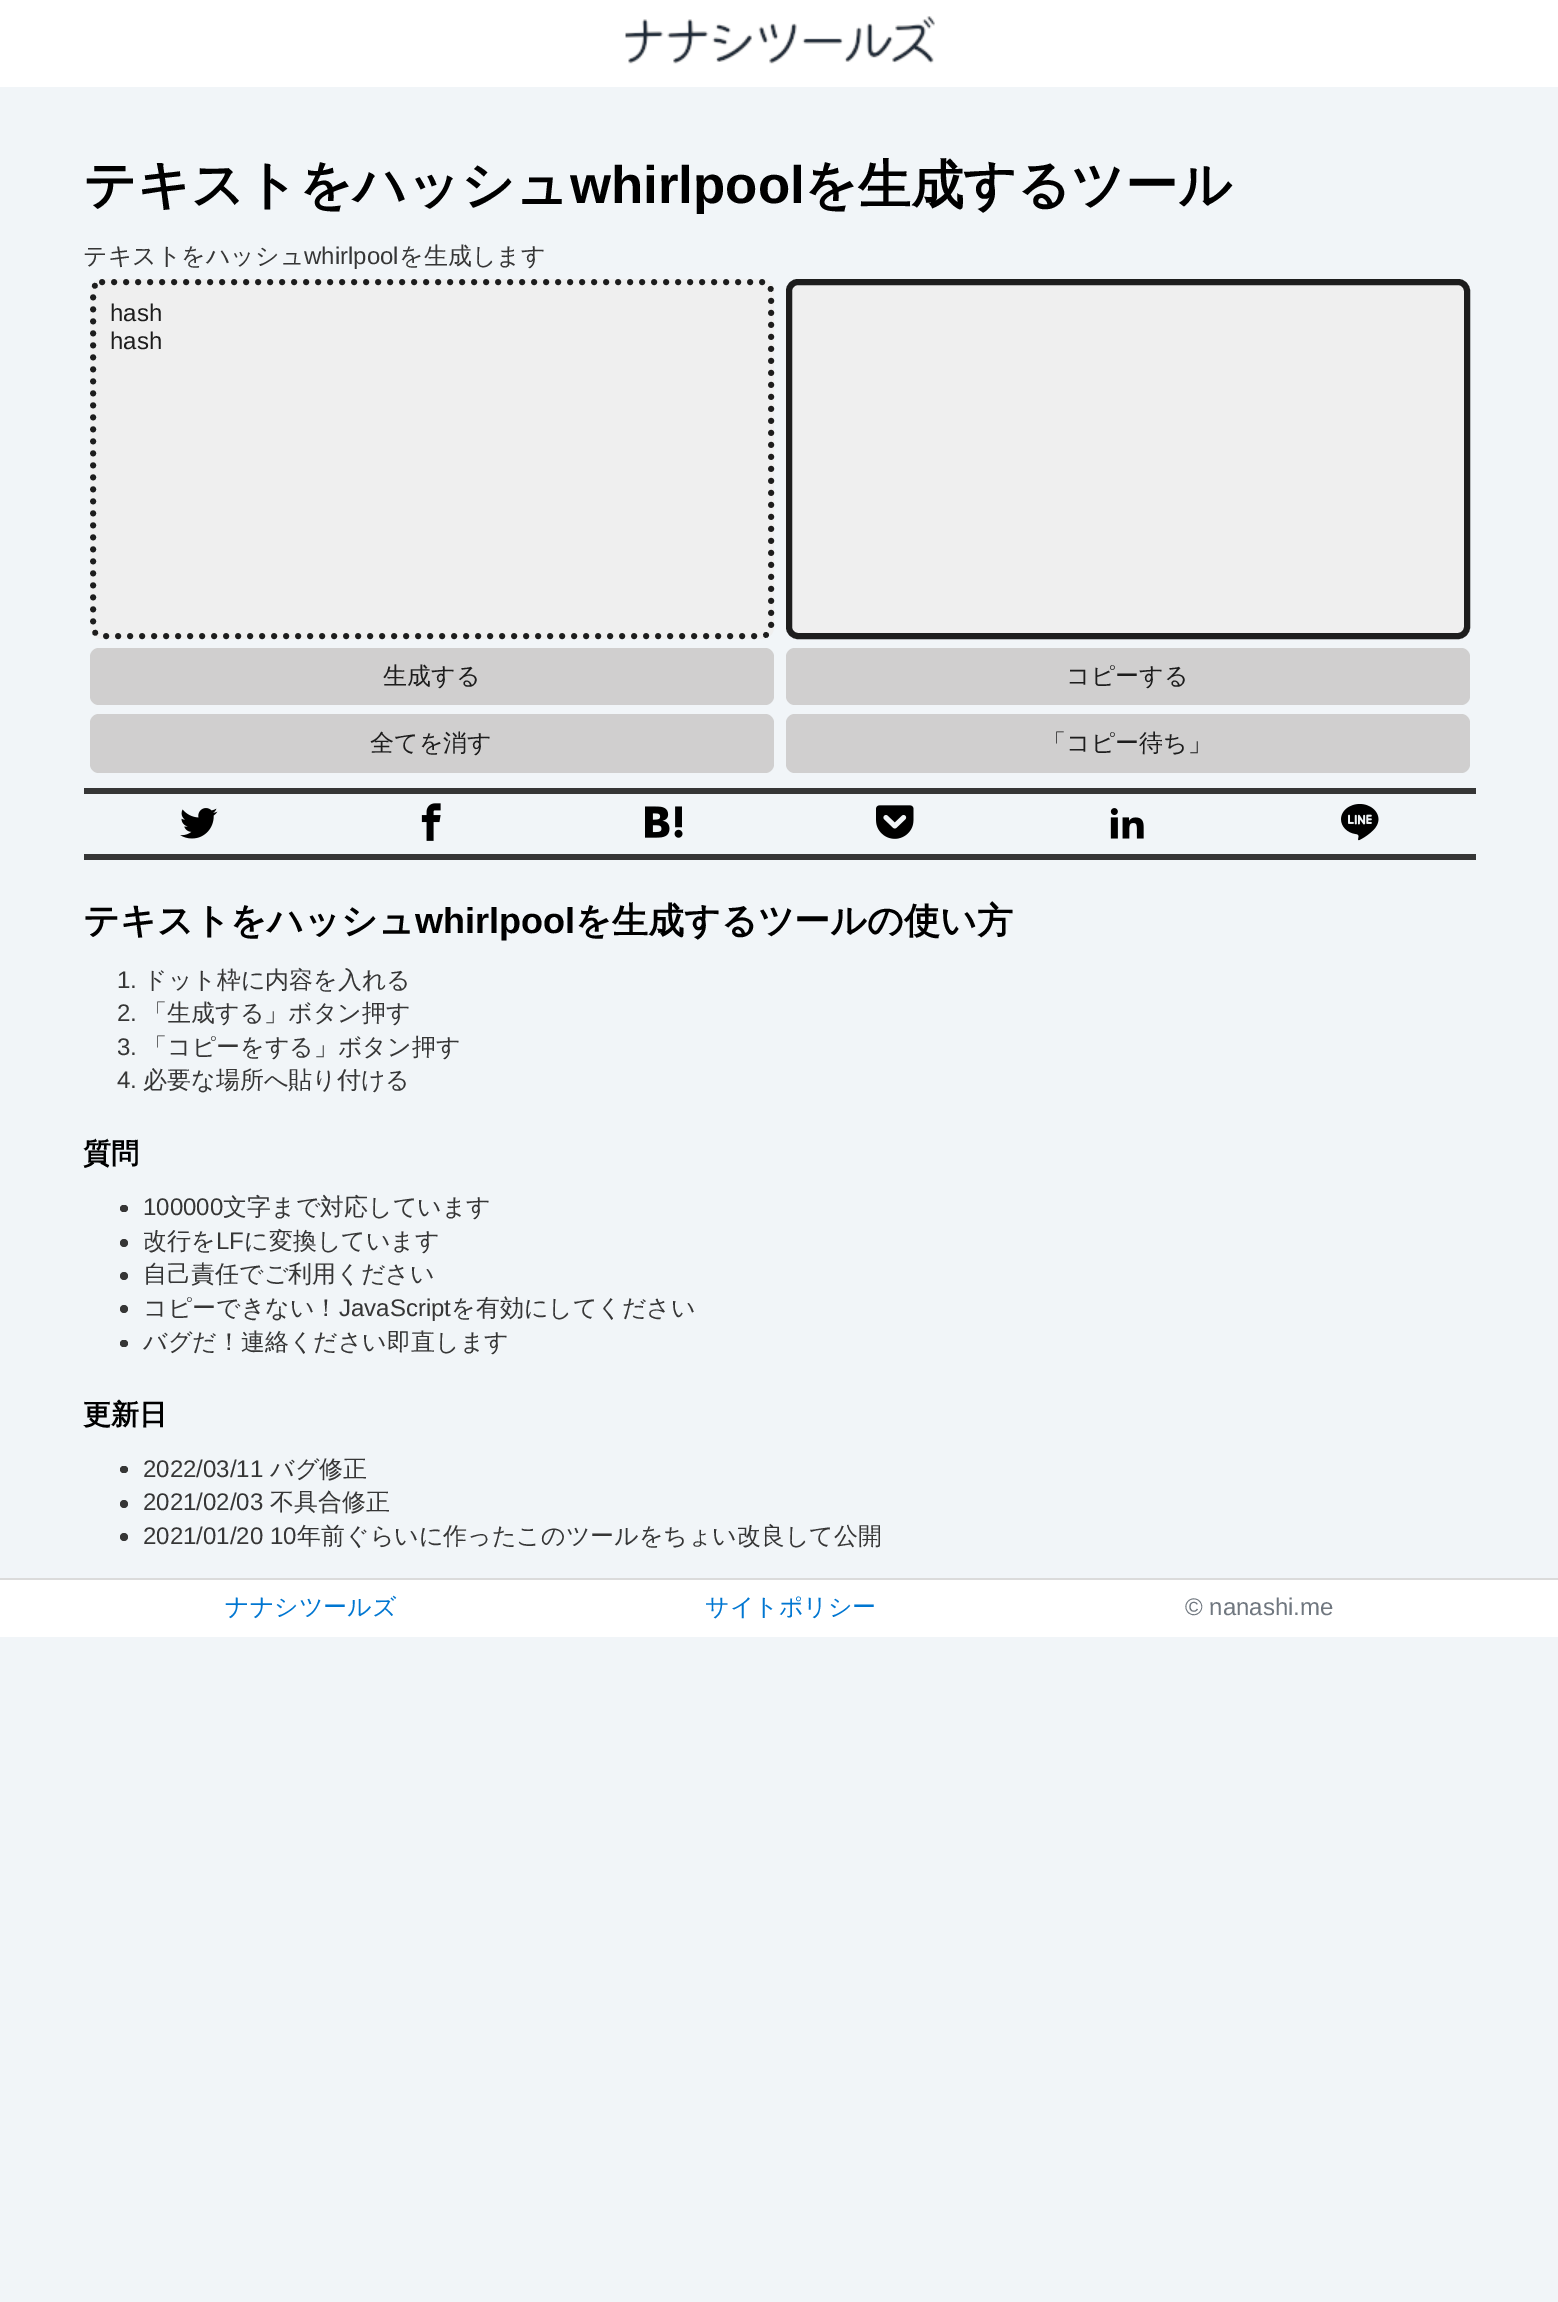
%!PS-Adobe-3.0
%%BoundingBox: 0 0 1558 2302
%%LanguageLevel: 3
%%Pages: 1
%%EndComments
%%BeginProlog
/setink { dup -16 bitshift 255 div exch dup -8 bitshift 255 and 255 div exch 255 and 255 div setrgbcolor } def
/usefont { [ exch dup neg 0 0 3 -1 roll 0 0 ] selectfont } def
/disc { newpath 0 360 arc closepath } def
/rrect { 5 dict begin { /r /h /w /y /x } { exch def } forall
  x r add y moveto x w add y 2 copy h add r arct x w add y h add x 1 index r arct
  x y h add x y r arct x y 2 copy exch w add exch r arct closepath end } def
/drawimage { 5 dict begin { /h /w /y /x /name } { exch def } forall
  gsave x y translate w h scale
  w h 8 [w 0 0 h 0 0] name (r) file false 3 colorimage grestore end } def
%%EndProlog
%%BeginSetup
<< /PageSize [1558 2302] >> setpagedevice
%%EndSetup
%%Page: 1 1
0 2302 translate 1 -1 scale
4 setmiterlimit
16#F1F5F8 setink
0 0 1558 2302 rectfill
16#FFFFFF setink
0 0 1558 87 rectfill
(img1.raw) 625 16 310 48 drawimage
/WenQuanYiZenHei-Bold 52.75 usefont
16#000000 setink
83 203 moveto (テキストをハッシュ) show
/LiberationSans-Bold 52.75 usefont
570 203 moveto (whirlpool) show
/WenQuanYiZenHei-Bold 52.75 usefont
804 203 moveto (を生成するツール) show
/WenQuanYiZenHei-Medium 24 usefont
16#363636 setink
83 264 moveto (テキストをハッシュ) show
/LiberationSans-Regular 24 usefont
304 264 moveto (whirlpool) show
/WenQuanYiZenHei-Medium 24 usefont
399 264 moveto (を生成します) show
16#EFEFEF setink
90 279 684 360 12 rrect fill
16#1D1D1D setink
6 setlinewidth
1 setlinecap
[0 12] 0 setdash
102 282 moveto 762 282 lineto 767 282 771 286 771 291 curveto 771 627 lineto 771 632 767 636 762 636 curveto 102 636 lineto 97 636 93 632 93 627 curveto 93 291 lineto 93 286 97 282 102 282 curveto closepath stroke
/LiberationSans-Regular 24 usefont
110 321 moveto (hash) show
110 349 moveto (hash) show
16#D0CFCF setink
90 648 684 57 9 rrect fill
/WenQuanYiZenHei-Medium 24 usefont
16#1D1D1D setink
383 684 moveto (生成する) show
16#D0CFCF setink
90 714 684 59 9 rrect fill
16#1D1D1D setink
370 751 moveto (全てを消す) show
16#EFEFEF setink
789 282 678 354 9 rrect gsave fill grestore
16#1D1D1D setink
0 setlinecap
[] 0 setdash
stroke
16#D0CFCF setink
786 648 684 57 9 rrect fill
16#1D1D1D setink
1066 684 moveto (コピーする) show
16#D0CFCF setink
786 714 684 59 9 rrect fill
16#1D1D1D setink
1042 751 moveto (「コピー待ち」) show
16#363636 setink
84 788 1392 6 rectfill
84 854 1392 6 rectfill
(img2.raw) 180 808 38 31 drawimage
(img3.raw) 421 803 20 38 drawimage
(img4.raw) 645 806 38 32 drawimage
(img5.raw) 876 805 38 34 drawimage
(img6.raw) 1110 808 34 31 drawimage
(img7.raw) 1341 804 38 37 drawimage
/WenQuanYiZenHei-Bold 36 usefont
16#000000 setink
83 933 moveto (テキストをハッシュ) show
/LiberationSans-Bold 36 usefont
415 933 moveto (whirlpool) show
/WenQuanYiZenHei-Bold 36 usefont
575 933 moveto (を生成するツールの使い方) show
/LiberationSans-Regular 24 usefont
16#363636 setink
117 988 moveto (1.) show
/WenQuanYiZenHei-Medium 24 usefont
143 988 moveto (ドット枠に内容を入れる) show
/LiberationSans-Regular 24 usefont
117 1021 moveto (2.) show
/WenQuanYiZenHei-Medium 24 usefont
143 1021 moveto (「生成する」ボタン押す) show
/LiberationSans-Regular 24 usefont
117 1055 moveto (3.) show
/WenQuanYiZenHei-Medium 24 usefont
143 1055 moveto (「コピーをする」ボタン押す) show
/LiberationSans-Regular 24 usefont
117 1088 moveto (4.) show
/WenQuanYiZenHei-Medium 24 usefont
143 1088 moveto (必要な場所へ貼り付ける) show
/WenQuanYiZenHei-Bold 28 usefont
16#000000 setink
83 1163 moveto (質問) show
16#363636 setink
120 1205 8 7 3.5 rrect fill
/LiberationSans-Regular 24 usefont
143 1215 moveto (100000) show
/WenQuanYiZenHei-Medium 24 usefont
223 1215 moveto (文字まで対応しています) show
124 1243 4 disc fill
143 1249 moveto (改行を) show
/LiberationSans-Regular 24 usefont
216 1249 moveto (LF) show
/WenQuanYiZenHei-Medium 24 usefont
244 1249 moveto (に変換しています) show
124 1276 4 disc fill
143 1282 moveto (自己責任でご利用ください) show
124 1309 4 disc fill
143 1316 moveto (コピーできない！) show
/LiberationSans-Regular 24 usefont
339 1316 moveto (JavaScript) show
/WenQuanYiZenHei-Medium 24 usefont
451 1316 moveto (を有効にしてください) show
120 1340 8 7 3.5 rrect fill
143 1350 moveto (バグだ！連絡ください即直します) show
/WenQuanYiZenHei-Bold 28 usefont
16#000000 setink
83 1424 moveto (更新日) show
16#363636 setink
120 1466 8 7 3.5 rrect fill
/LiberationSans-Regular 24 usefont
143 1477 moveto (2022/03/11) show
/WenQuanYiZenHei-Medium 24 usefont
270 1477 moveto (バグ修正) show
124 1504 4 disc fill
/LiberationSans-Regular 24 usefont
143 1510 moveto (2021/02/03) show
/WenQuanYiZenHei-Medium 24 usefont
270 1510 moveto (不具合修正) show
124 1537 4 disc fill
/LiberationSans-Regular 24 usefont
143 1544 moveto (2021/01/20 10) show
/WenQuanYiZenHei-Medium 24 usefont
297 1544 moveto (年前ぐらいに作ったこのツールをちょい改良して公開) show
16#FFFFFF setink
0 1580 1558 57 rectfill
16#DBDBDB setink
0 1578 1558 2 rectfill
16#0076D1 setink
225 1615 moveto (ナナシツールズ) show
705 1615 moveto (サイトポリシー) show
/LiberationSans-Regular 24 usefont
16#70777F setink
1185 1615 moveto (© nanashi.me) show
showpage
%%EOF
